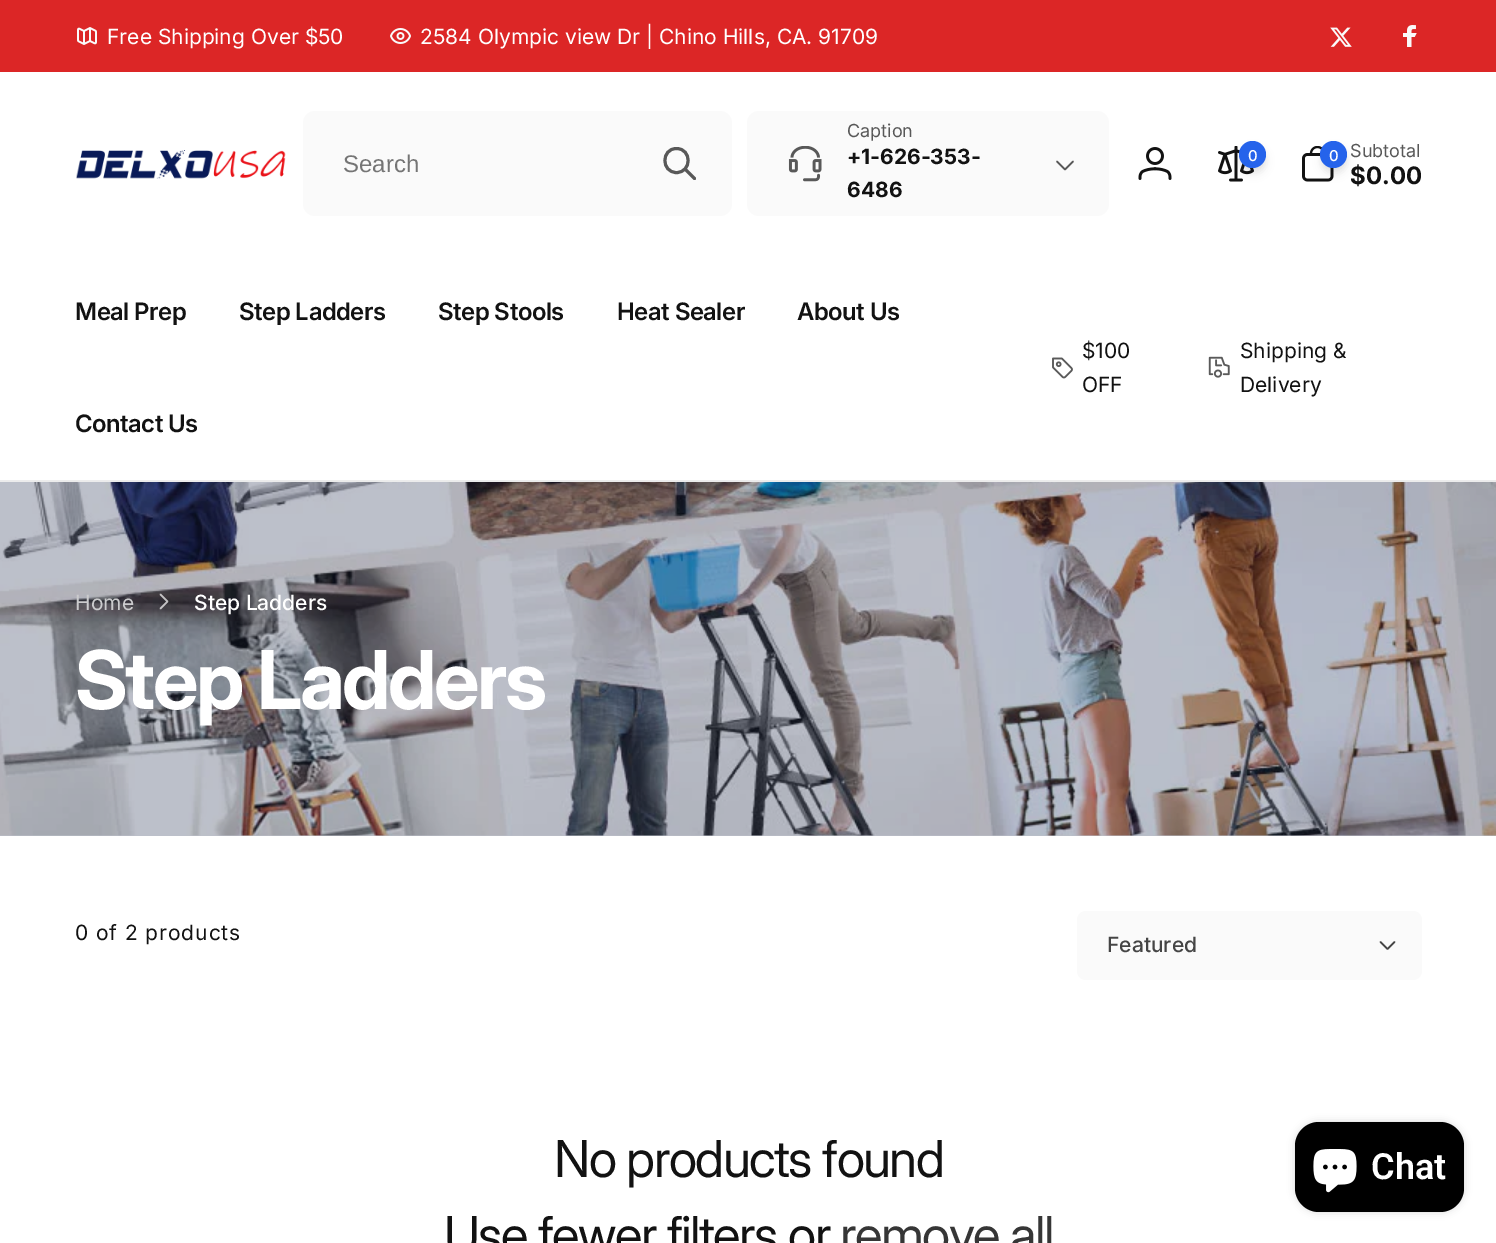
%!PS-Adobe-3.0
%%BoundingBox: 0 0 1496 1243
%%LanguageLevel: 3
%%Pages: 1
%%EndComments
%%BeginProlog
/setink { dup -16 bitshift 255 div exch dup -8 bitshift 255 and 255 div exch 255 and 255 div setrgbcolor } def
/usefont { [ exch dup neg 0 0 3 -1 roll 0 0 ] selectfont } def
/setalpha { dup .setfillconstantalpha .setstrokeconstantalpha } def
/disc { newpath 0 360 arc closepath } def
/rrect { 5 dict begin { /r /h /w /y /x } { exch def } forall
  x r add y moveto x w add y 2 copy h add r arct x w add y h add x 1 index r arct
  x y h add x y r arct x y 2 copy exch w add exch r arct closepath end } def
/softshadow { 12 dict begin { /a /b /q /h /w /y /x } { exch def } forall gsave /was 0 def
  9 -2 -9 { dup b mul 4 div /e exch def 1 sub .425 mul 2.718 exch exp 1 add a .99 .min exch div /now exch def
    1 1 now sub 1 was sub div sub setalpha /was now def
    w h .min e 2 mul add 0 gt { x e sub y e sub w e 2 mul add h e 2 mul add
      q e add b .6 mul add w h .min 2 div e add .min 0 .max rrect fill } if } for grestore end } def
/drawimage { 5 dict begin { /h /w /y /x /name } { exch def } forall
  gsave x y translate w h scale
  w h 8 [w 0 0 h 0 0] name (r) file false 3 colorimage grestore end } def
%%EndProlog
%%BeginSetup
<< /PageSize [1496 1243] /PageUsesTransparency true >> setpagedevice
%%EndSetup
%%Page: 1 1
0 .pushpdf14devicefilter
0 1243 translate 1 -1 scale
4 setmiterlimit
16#FFFFFF setink
0 0 1496 1243 rectfill
16#BCC0CA setink
0 835 1496 1 rectfill
16#DC2626 setink
0 0 1496 72 rectfill
(img1.raw) 77 27 20 18 drawimage
/Inter-Regular 21 usefont
16#FFFFFF setink
107 44 moveto (Free Shipping Over $50) show
(img2.raw) 390 28 21 16 drawimage
420 44 moveto (2584 Olympic view Dr | Chino Hills, CA. 91709) show
(img3.raw) 1330 27 22 20 drawimage
(img4.raw) 1403 25 14 22 drawimage
16#ECECEC setink
0 480 1496 2 rectfill
(img5.raw) 76 150 210 29 drawimage
16#FAFAFA setink
303 111 429 105 12 rrect fill
/LiberationSans-Regular 24 usefont
16#757575 setink
343 172 moveto (Search) show
16#585858 setink
3 setlinewidth
1 setlinecap
1 setlinejoin
694.5 178.5 moveto 685 169 lineto 676.5 172.5 moveto 692 172.5 692 148.5 676.5 148.5 curveto 661 148.5 661 172.5 676.5 172.5 curveto closepath stroke
16#FAFAFA setink
747 111 362 105 12 rrect fill
(img6.raw) 788 146 34 36 drawimage
/Inter-Regular 18 usefont
16#585858 setink
847 137 moveto (Caption) show
/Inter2-Bold 21 usefont
16#121212 setink
847 164 moveto (+1-626-353-) show
847 197 moveto (6486) show
16#585858 setink
1.5 setlinewidth
1073 161.5 moveto 1065 169.5 lineto 1057 161.5 lineto stroke
(img7.raw) 1138 147 34 33 drawimage
(img8.raw) 1218 146 36 36 drawimage
16#121212 setink
1241 146 24 24 12 3 0.06 softshadow
1241 149 24 24 12 4.5 0.1 softshadow
16#2563EB setink
1252.5 154.5 13.5 disc fill
/Inter-Medium 15 usefont
16#FFFFFF setink
1248 161 moveto (0) show
(img9.raw) 1302 146 32 36 drawimage
16#121212 setink
1322 146 24 24 12 3 0.06 softshadow
1322 149 24 24 12 4.5 0.1 softshadow
16#2563EB setink
1333.5 154.5 13.5 disc fill
16#FFFFFF setink
1329 161 moveto (0) show
/Inter-Regular 18 usefont
16#585858 setink
1350 157 moveto (Subtotal) show
/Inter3-Bold 24 usefont
16#121212 setink
1350 184 moveto ($0.00) show
/Inter-SemiBold 24 usefont
75 320 moveto -0.5 0 (Meal Prep) ashow
239 320 moveto -0.5 0 (Step Ladders) ashow
438 320 moveto -0.5 0 (Step Stools) ashow
617 320 moveto -0.5 0 (Heat Sealer) ashow
797 320 moveto -0.5 0 (About Us) ashow
75 432 moveto -0.5 0 (Contact Us) ashow
(img10.raw) 1052 357 21 22 drawimage
/Inter-Regular 21 usefont
1082 358 moveto ($100) show
1082 392 moveto (OFF) show
(img11.raw) 1208 356 22 22 drawimage
1240 358 moveto (Shipping &) show
1240 392 moveto (Delivery) show
(img12.raw) 0 482 1496 354 drawimage
16#CBCBCD setink
75 610 moveto (Home) show
0.7 setalpha
16#FFFFFF setink
160.5 594.5 moveto 167.5 601.5 lineto 160.5 608.5 lineto stroke
/Inter-Medium 21 usefont
1 setalpha
194 610 moveto (Step Ladders) show
/Inter-Bold 81 usefont
75 709 moveto -2.4 0 (Step Ladders) ashow
/Inter-Regular 21 usefont
16#121212 setink
75 940 moveto 0.9 0 (0 of 2 products) ashow
16#FAFAFA setink
1077 911 345 69 9 rrect fill
/Inter-Medium 21 usefont
16#454545 setink
1107 952 moveto (Featured) show
1394.5 942 moveto 1387.5 949 lineto 1380.5 942 lineto stroke
/Inter2-Regular 51 usefont
16#121212 setink
554 1177 moveto -1.5 0 (No products found) ashow
444 1253 moveto -1.5 0 (Use fewer filters or) ashow
16#363636 setink
840 1253 moveto -1.5 0 (remove all) ashow
16#000000 setink
1295 1122 169 90 24 4 0.15 softshadow
1295 1122 169 90 24 rrect fill
(img13.raw) 1313 1149 44 44 drawimage
/Roboto-SemiBold 36 usefont
16#FFFFFF setink
1371 1179 moveto (Chat) show
.poppdf14devicefilter showpage
%%EOF
